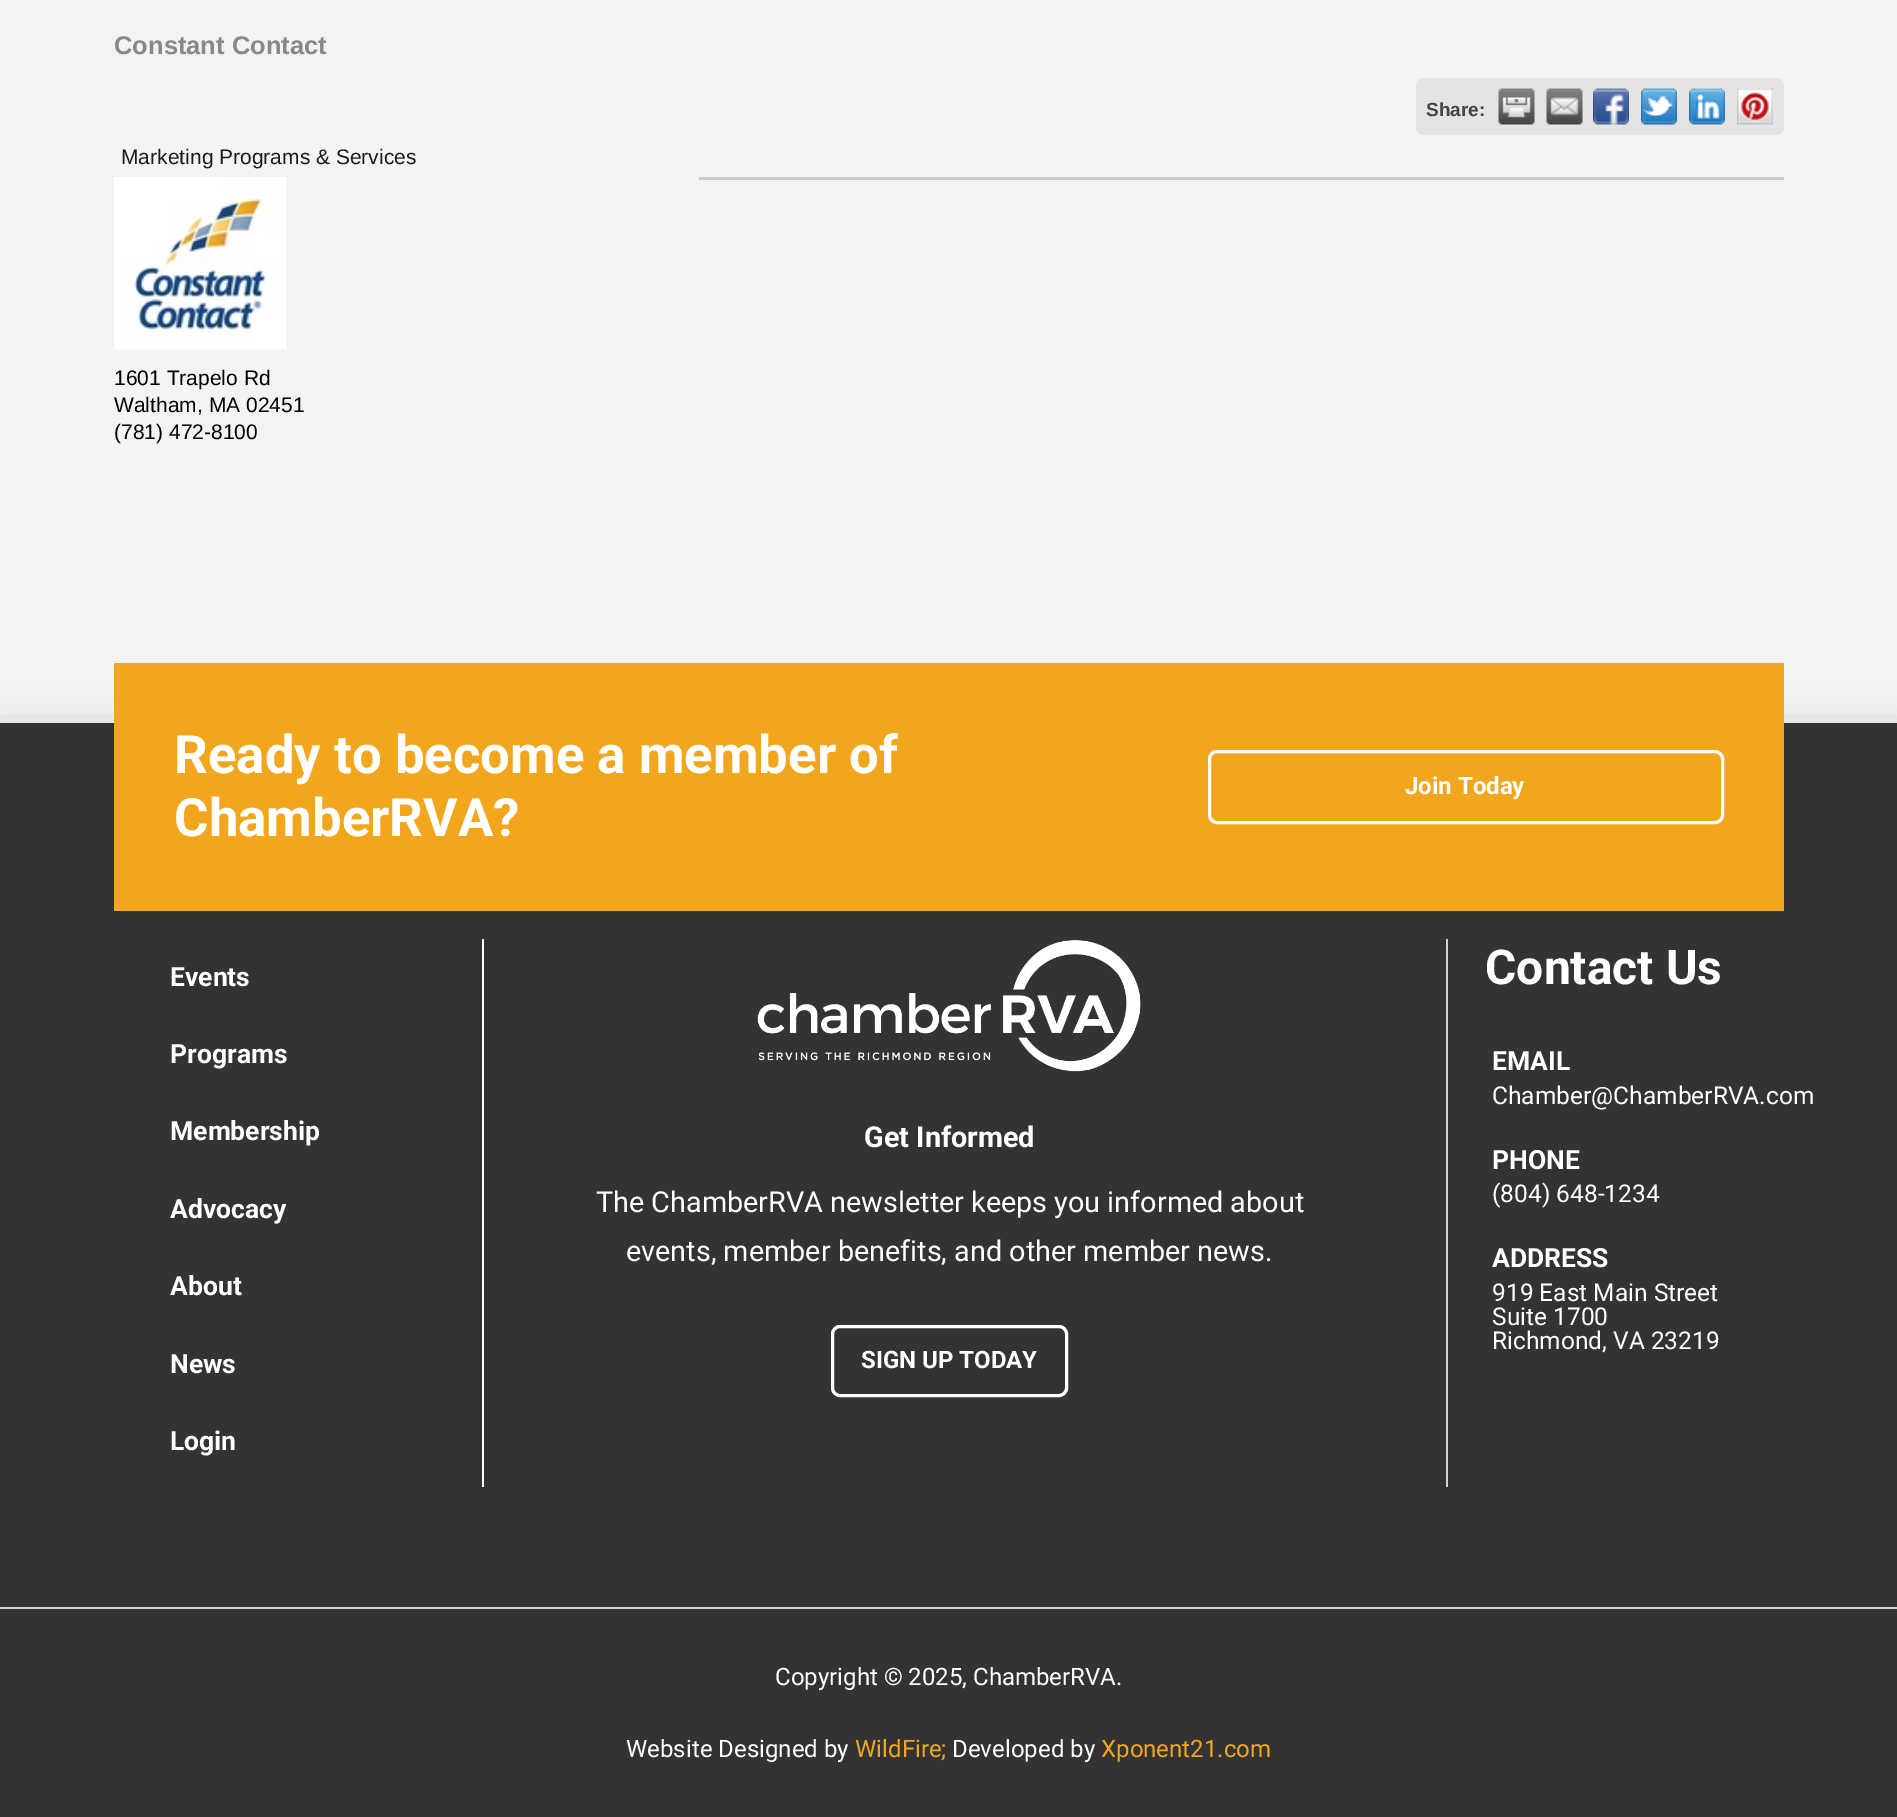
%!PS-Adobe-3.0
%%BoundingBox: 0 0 1897 1817
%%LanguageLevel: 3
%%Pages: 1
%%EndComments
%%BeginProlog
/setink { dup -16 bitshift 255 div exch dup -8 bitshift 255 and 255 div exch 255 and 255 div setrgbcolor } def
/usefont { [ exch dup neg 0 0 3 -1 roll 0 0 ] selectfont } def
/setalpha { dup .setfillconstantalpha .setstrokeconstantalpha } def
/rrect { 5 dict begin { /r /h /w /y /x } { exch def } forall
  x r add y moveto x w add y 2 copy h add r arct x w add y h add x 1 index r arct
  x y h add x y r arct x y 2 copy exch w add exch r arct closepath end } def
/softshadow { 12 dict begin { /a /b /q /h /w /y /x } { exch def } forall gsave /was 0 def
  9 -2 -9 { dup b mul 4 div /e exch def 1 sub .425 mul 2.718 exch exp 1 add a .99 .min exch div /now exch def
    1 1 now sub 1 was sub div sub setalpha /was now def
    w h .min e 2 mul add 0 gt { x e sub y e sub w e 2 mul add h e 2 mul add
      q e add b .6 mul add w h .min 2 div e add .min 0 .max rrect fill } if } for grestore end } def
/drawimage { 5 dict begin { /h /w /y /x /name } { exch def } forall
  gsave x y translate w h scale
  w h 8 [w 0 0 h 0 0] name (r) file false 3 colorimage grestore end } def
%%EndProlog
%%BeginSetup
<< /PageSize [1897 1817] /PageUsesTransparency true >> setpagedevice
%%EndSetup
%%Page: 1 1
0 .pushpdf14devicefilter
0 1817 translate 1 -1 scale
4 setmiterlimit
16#F3F3F3 setink
0 0 1897 1817 rectfill
/LiberationSans-Bold 25.5 usefont
16#888888 setink
114 54 moveto (Constant Contact) show
16#E4E4E4 setink
1416 78 368 57 8 rrect fill
/LiberationSans-Bold 19 usefont
16#444444 setink
1426 116 moveto (Share:) show
(img1.raw) 1498 88 37 37 drawimage
(img2.raw) 1546 88 37 37 drawimage
(img3.raw) 1593 88 36 37 drawimage
(img4.raw) 1641 88 36 37 drawimage
(img5.raw) 1689 88 36 37 drawimage
(img6.raw) 1737 88 36 37 drawimage
/LiberationSans-Regular 21 usefont
16#1A1A1A setink
121 164 moveto (Marketing Programs & Services) show
16#CCCCCC setink
699 177 1085 3 rectfill
(img7.raw) 114 177 173 173 drawimage
16#000000 setink
[
    [(1601 Trapelo Rd) 114 385]
    [(Waltham, MA 02451) 114 412]
    [(\(781\) 472-8100) 114 439]
] { aload pop moveto show } forall
0 728 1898 883 0 19 0.15 softshadow
16#333333 setink
0 723 1897 884 rectfill
16#F2A61E setink
114 663 1670 248 rectfill
/Roboto-Bold 52.75 usefont
16#FFFFFF setink
174 773 moveto (Ready to become a member of) show
174 836 moveto (ChamberRVA?) show
3 setlinewidth
1209.5 751.5 513 71 7.5 rrect stroke
/Roboto-Bold 24 usefont
1405 794 moveto (Join Today) show
/Roboto-Bold 26.5 usefont
[
    [(Events) 170 986]
    [(Programs) 170 1063]
    [(Membership) 170 1140]
    [(Advocacy) 170 1218]
    [(About) 170 1295]
    [(News) 170 1373]
    [(Login) 170 1450]
] { aload pop moveto show } forall
482 939 2 548 rectfill
(img8.raw) 757 940 384 132 drawimage
/Roboto-Bold 28.8 usefont
864 1147 moveto (Get Informed) show
/Roboto-Regular 28.8 usefont
596 1212 moveto (The ChamberRVA newsletter keeps you informed about) show
626 1261 moveto (events, member benefits, and other member news.) show
832.5 1326.5 234 69 7.5 rrect stroke
/Roboto-Bold 24 usefont
861 1368 moveto (SIGN UP TODAY) show
16#D4D4D4 setink
1446 939 2 548 rectfill
/Roboto-Bold 48 usefont
16#FFFFFF setink
1485 984 moveto (Contact Us) show
/Roboto-Bold 26.5 usefont
1492 1070 moveto (EMAIL) show
/Roboto-Regular 24.5 usefont
1492 1104 moveto (Chamber@ChamberRVA.com) show
/Roboto-Bold 26.5 usefont
1492 1169 moveto (PHONE) show
/Roboto-Regular 24.5 usefont
1492 1202 moveto (\(804\) 648-1234) show
/Roboto-Bold 26.5 usefont
1492 1267 moveto (ADDRESS) show
/Roboto-Regular 24.5 usefont
[
    [(919 East Main Street) 1492 1301]
    [(Suite 1700) 1492 1325]
    [(Richmond, VA 23219) 1492 1349]
] { aload pop moveto show } forall
16#333333 setink
0 1609 1897 208 rectfill
16#D4D4D4 setink
0 1607 1897 2 rectfill
/Roboto-Regular 24 usefont
16#FFFFFF setink
775 1685 moveto (Copyright © 2025, ChamberRVA.) show
626 1757 moveto (Website Designed by) show
16#F2A61E setink
855 1757 moveto (WildFire;) show
16#FFFFFF setink
952 1757 moveto (Developed by) show
16#F2A61E setink
1101 1757 moveto (Xponent21.com) show
.poppdf14devicefilter showpage
%%EOF
